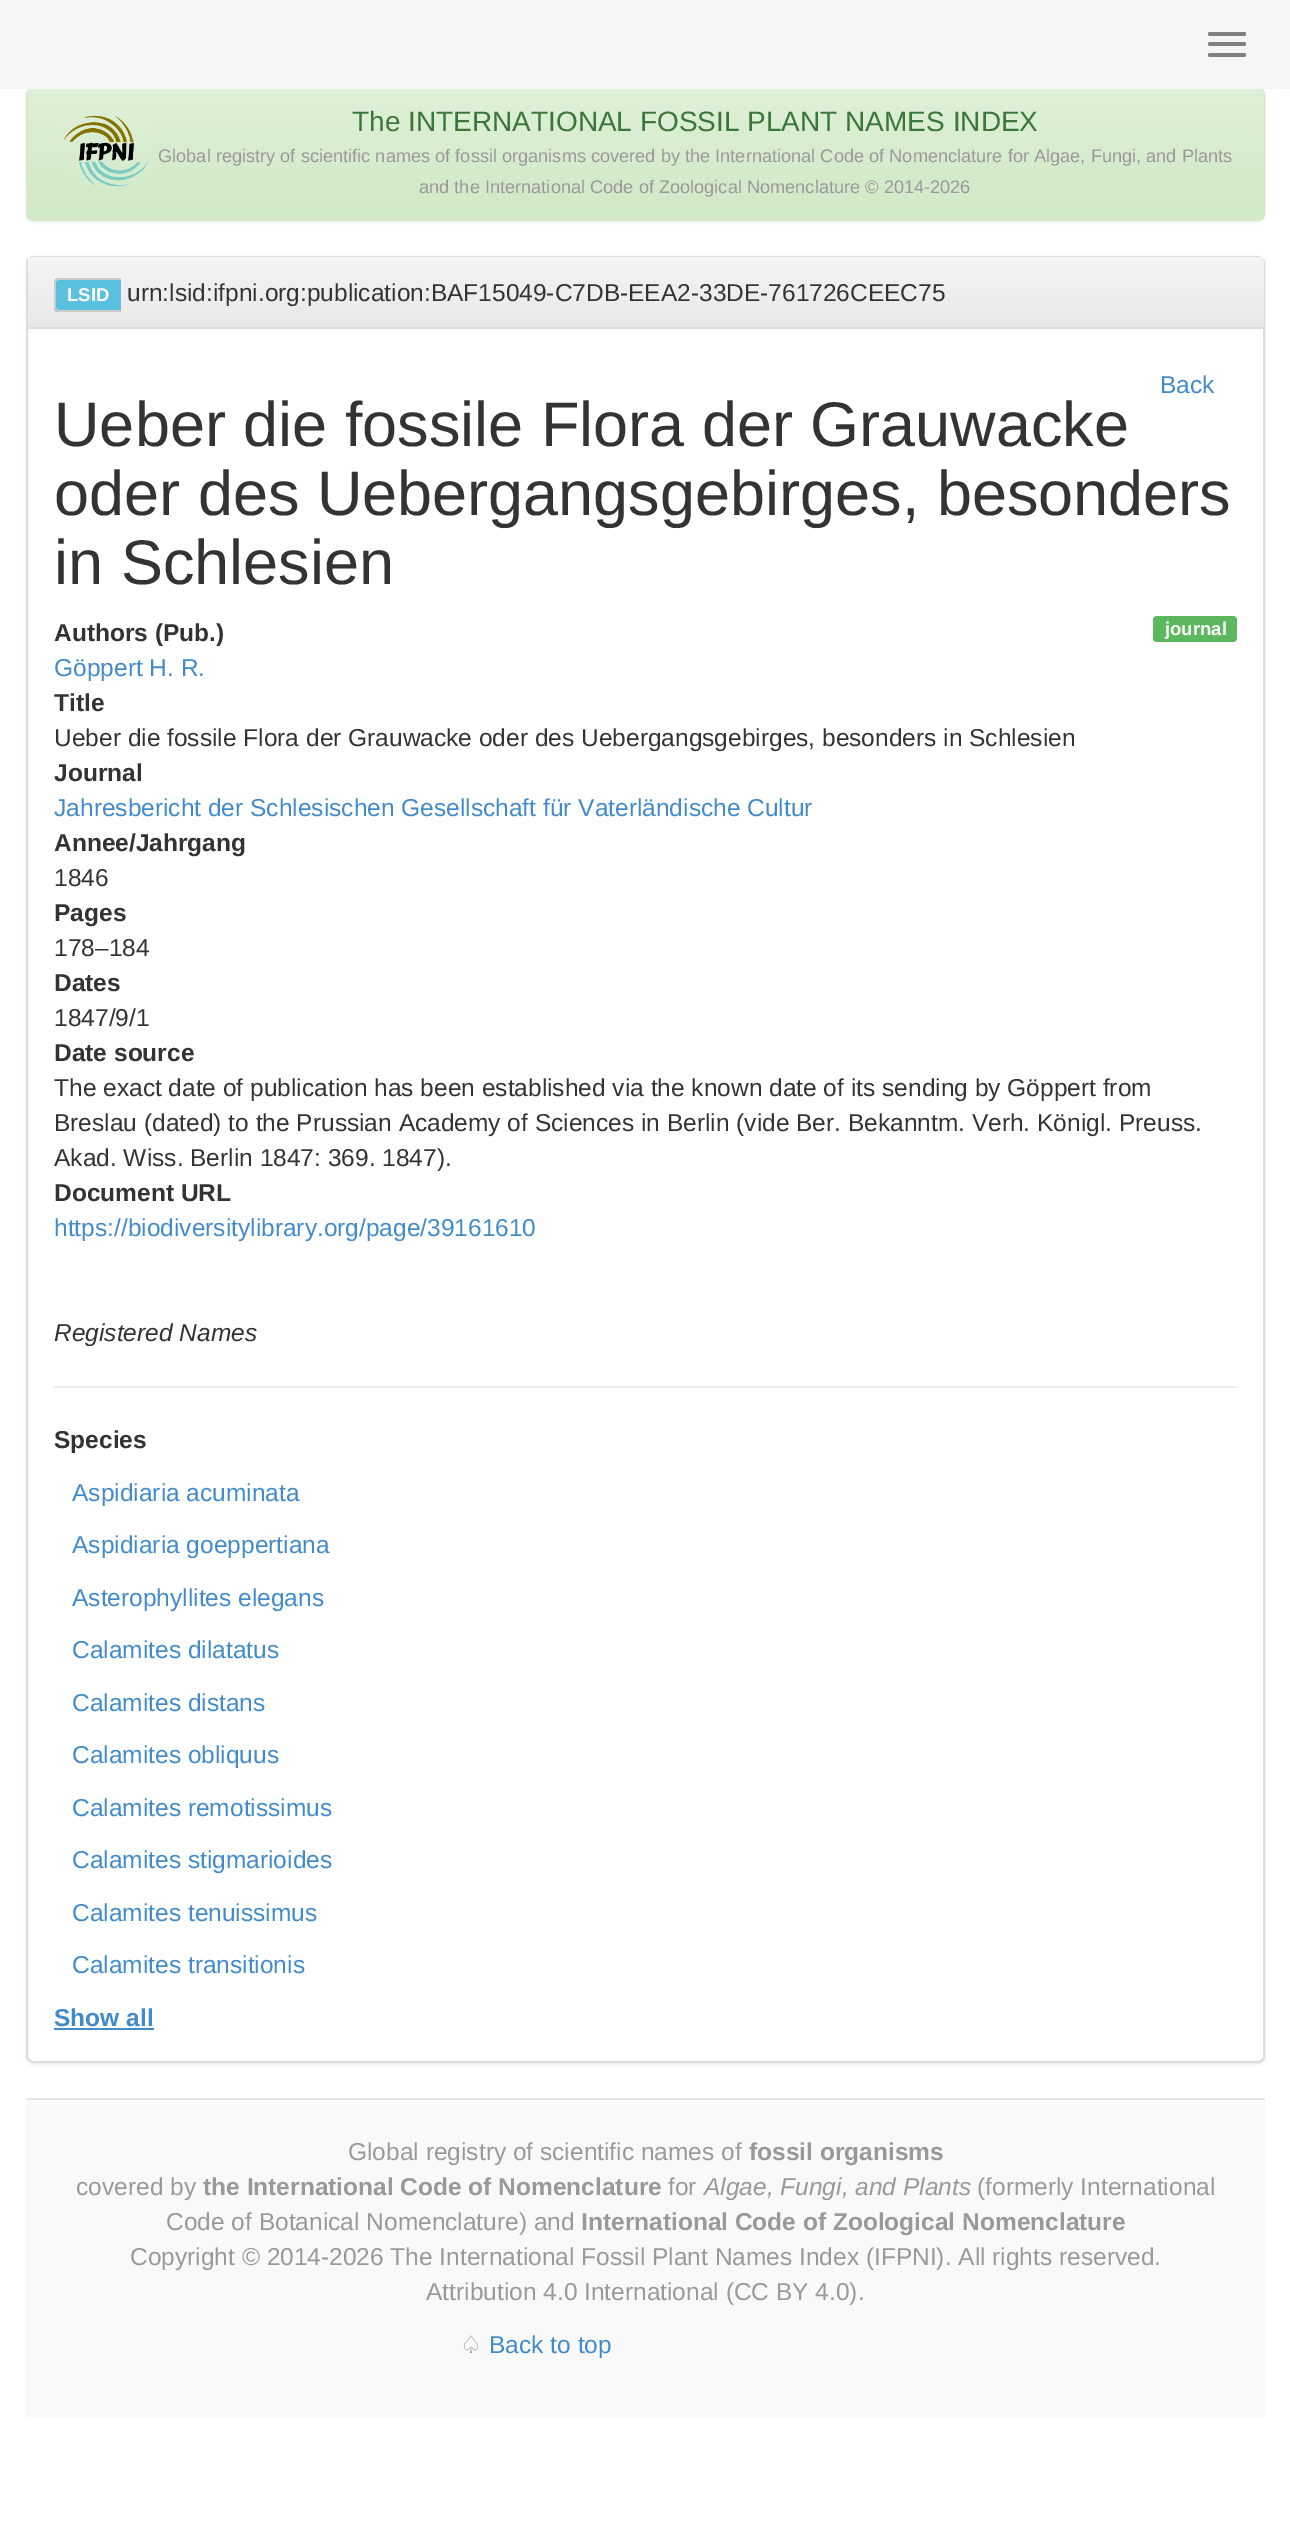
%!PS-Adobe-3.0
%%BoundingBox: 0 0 1290 2530
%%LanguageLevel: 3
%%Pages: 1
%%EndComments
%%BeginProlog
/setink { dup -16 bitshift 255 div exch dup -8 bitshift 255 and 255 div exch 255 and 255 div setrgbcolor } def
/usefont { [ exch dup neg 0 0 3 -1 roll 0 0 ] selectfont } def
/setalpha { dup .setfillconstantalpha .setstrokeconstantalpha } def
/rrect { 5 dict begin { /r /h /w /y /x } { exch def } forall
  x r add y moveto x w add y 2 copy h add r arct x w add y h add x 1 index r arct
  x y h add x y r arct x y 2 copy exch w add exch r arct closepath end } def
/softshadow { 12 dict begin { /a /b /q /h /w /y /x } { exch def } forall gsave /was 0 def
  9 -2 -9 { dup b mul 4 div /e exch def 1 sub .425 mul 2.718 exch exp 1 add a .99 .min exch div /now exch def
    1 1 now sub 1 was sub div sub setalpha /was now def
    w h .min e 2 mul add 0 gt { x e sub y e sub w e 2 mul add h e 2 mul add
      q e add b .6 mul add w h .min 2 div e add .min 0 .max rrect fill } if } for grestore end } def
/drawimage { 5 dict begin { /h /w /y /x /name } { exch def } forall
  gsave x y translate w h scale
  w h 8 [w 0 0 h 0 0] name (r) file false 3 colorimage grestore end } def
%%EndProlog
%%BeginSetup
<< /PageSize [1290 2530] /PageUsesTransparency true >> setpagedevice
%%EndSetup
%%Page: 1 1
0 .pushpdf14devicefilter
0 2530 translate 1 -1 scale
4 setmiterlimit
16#FFFFFF setink
0 0 1290 2530 rectfill
16#000000 setink
26 89 1239 133 7 2 0.05 softshadow
16#D6E9C6 setink
2 setlinewidth
27 89 1237 131 6 rrect stroke
16#F5F5F5 setink
0 0 1290 89 rectfill
16#808080 setink
1208 32 38 4 2 rrect fill
1208 42 38 4 2 rrect fill
1208 53 38 4 2 rrect fill
gsave 33 89 moveto 1259 89 lineto 1262 89 1264 91 1264 94 curveto 1264 217 lineto 28 217 lineto 28 94 lineto 28 91 30 89 33 89 curveto closepath clip newpath
<< /ShadingType 2 /ColorSpace /DeviceRGB /Coords [646 89 646 217] /Extend [true true] /Function << /FunctionType 2 /Domain [0 1] /C0 [0.875 0.941 0.847] /C1 [0.816 0.914 0.776] /N 1 >> >> shfill grestore
16#D6E9C6 setink
28 217 1236 2 rectfill
(img1.raw) 62 115 87 72 drawimage
/LiberationSans-Regular 28 usefont
16#3C763D setink
352 131 moveto (The INTERNATIONAL FOSSIL PLANT NAMES INDEX) show
/LiberationSans-Regular 18.2 usefont
16#999999 setink
158 162 moveto (Global registry of scientific names of fossil organisms covered by the International Code of Nomenclature for Algae, Fungi, and Plants) show
419 193 moveto (and the International Code of Zoological Nomenclature © 2014-2026) show
16#000000 setink
26 257 1239 1808 7 2 0.05 softshadow
16#FFFFFF setink
27 257 1237 1805 6 rrect gsave fill grestore
16#DDDDDD setink
stroke
gsave 33 257 moveto 1259 257 lineto 1262 257 1264 259 1264 262 curveto 1264 327 lineto 28 327 lineto 28 262 lineto 28 259 30 257 33 257 curveto closepath clip newpath
<< /ShadingType 2 /ColorSpace /DeviceRGB /Coords [646 257 646 327] /Extend [true true] /Function << /FunctionType 2 /Domain [0 1] /C0 [0.961 0.961 0.961] /C1 [0.91 0.91 0.91] /N 1 >> >> shfill grestore
28 327 1236 2 rectfill
16#5BC0DE setink
58 278 moveto 121 278 lineto 121 312 lineto 58 312 lineto 56 312 54 310 54 308 curveto 54 282 lineto 54 280 56 278 58 278 curveto closepath fill
16#CCCCCC setink
59 278 moveto 121 278 lineto 121 312 lineto 59 312 lineto 56 312 54 309 54 307 curveto 54 283 lineto 54 280 56 278 59 278 curveto closepath 59 280 moveto 121 280 lineto 121 310 lineto 59 310 lineto 57 310 56 308 56 307 curveto 56 283 lineto 56 281 57 280 59 280 curveto closepath eofill
/LiberationSans-Bold 18.5 usefont
16#FFFFFF setink
67 301 moveto (LSID) show
/LiberationSans-Regular 24.5 usefont
16#333333 setink
127 301 moveto (urn:lsid:ifpni.org:publication:BAF15049-C7DB-EEA2-33DE-761726CEEC75) show
16#428BCA setink
1160 393 moveto (Back) show
/LiberationSans-Regular 63 usefont
16#333333 setink
[
    [(Ueber die fossile Flora der Grauwacke) 54 446]
    [(oder des Uebergangsgebirges, besonders) 54 515]
    [(in Schlesien) 54 584]
] { aload pop moveto show } forall
16#5CB85C setink
1153 616 84 26 4 rrect fill
/LiberationSans-Bold 18.5 usefont
16#FFFFFF setink
1165 635 moveto (journal) show
/LiberationSans-Bold 24.5 usefont
16#333333 setink
54 641 moveto (Authors \(Pub.\)) show
/LiberationSans-Regular 24.5 usefont
16#428BCA setink
54 676 moveto (Göppert H. R.) show
/LiberationSans-Bold 24.5 usefont
16#333333 setink
54 711 moveto (Title) show
/LiberationSans-Regular 24.5 usefont
54 746 moveto (Ueber die fossile Flora der Grauwacke oder des Uebergangsgebirges, besonders in Schlesien) show
/LiberationSans-Bold 24.5 usefont
54 781 moveto (Journal) show
/LiberationSans-Regular 24.5 usefont
16#428BCA setink
54 816 moveto (Jahresbericht der Schlesischen Gesellschaft für Vaterländische Cultur) show
/LiberationSans-Bold 24.5 usefont
16#333333 setink
54 851 moveto (Annee/Jahrgang) show
/LiberationSans-Regular 24.5 usefont
54 886 moveto (1846) show
/LiberationSans-Bold 24.5 usefont
54 921 moveto (Pages) show
/LiberationSans-Regular 24.5 usefont
54 956 moveto (178–184) show
/LiberationSans-Bold 24.5 usefont
54 991 moveto (Dates) show
/LiberationSans-Regular 24.5 usefont
54 1026 moveto (1847/9/1) show
/LiberationSans-Bold 24.5 usefont
54 1061 moveto (Date source) show
/LiberationSans-Regular 24.5 usefont
[
    [(The exact date of publication has been established via the known date of its sending by Göppert from) 54 1096]
    [(Breslau \(dated\) to the Prussian Academy of Sciences in Berlin \(vide Ber. Bekanntm. Verh. Königl. Preuss.) 54 1131]
    [(Akad. Wiss. Berlin 1847: 369. 1847\).) 54 1166]
] { aload pop moveto show } forall
/LiberationSans-Bold 24.5 usefont
54 1201 moveto (Document URL) show
/LiberationSans-Regular 24.5 usefont
16#428BCA setink
54 1236 moveto (https://biodiversitylibrary.org/page/39161610) show
/LiberationSans-Italic 24.5 usefont
16#333333 setink
54 1341 moveto (Registered Names) show
16#EEEEEE setink
54 1386 1183 2 rectfill
/LiberationSans-Bold 24.5 usefont
16#333333 setink
54 1448 moveto (Species) show
/LiberationSans-Regular 24.5 usefont
16#428BCA setink
[
    [(Aspidiaria acuminata) 72 1501]
    [(Aspidiaria goeppertiana) 72 1553]
    [(Asterophyllites elegans) 72 1606]
    [(Calamites dilatatus) 72 1658]
    [(Calamites distans) 72 1711]
    [(Calamites obliquus) 72 1763]
    [(Calamites remotissimus) 72 1816]
    [(Calamites stigmarioides) 72 1868]
    [(Calamites tenuissimus) 72 1921]
    [(Calamites transitionis) 72 1973]
] { aload pop moveto show } forall
/LiberationSans-Bold 24.5 usefont
54 2026 moveto (Show all) show
[
    [54 2028 100 2 16#428BCA]
    [26 2100 1239 317 16#F9F9F9]
    [26 2098 1239 2 16#E5E5E5]
] { aload pop setink rectfill } forall
/LiberationSans-Regular 24.5 usefont
16#999999 setink
348 2160 moveto (Global registry of scientific names of) show
/LiberationSans-Bold 24.5 usefont
749 2160 moveto (fossil organisms) show
/LiberationSans-Regular 24.5 usefont
76 2195 moveto (covered by) show
/LiberationSans-Bold 24.5 usefont
203 2195 moveto (the International Code of Nomenclature) show
/LiberationSans-Regular 24.5 usefont
668 2195 moveto (for) show
/LiberationSans-Italic 24.5 usefont
704 2195 moveto (Algae, Fungi, and Plants) show
/LiberationSans-Regular 24.5 usefont
977 2195 moveto (\(formerly International) show
166 2230 moveto (Code of Botanical Nomenclature\) and) show
/LiberationSans-Bold 24.5 usefont
581 2230 moveto (International Code of Zoological Nomenclature) show
/LiberationSans-Regular 24.5 usefont
130 2265 moveto (Copyright © 2014-2026 The International Fossil Plant Names Index \(IFPNI\). All rights reserved.) show
426 2300 moveto (Attribution 4.0 International \(CC BY 4.0\).) show
/DejaVuSans-Regular 24.5 usefont
460 2353 moveto (♤) show
/LiberationSans-Regular 24.5 usefont
16#428BCA setink
489 2353 moveto (Back to top) show
.poppdf14devicefilter showpage
%%EOF
